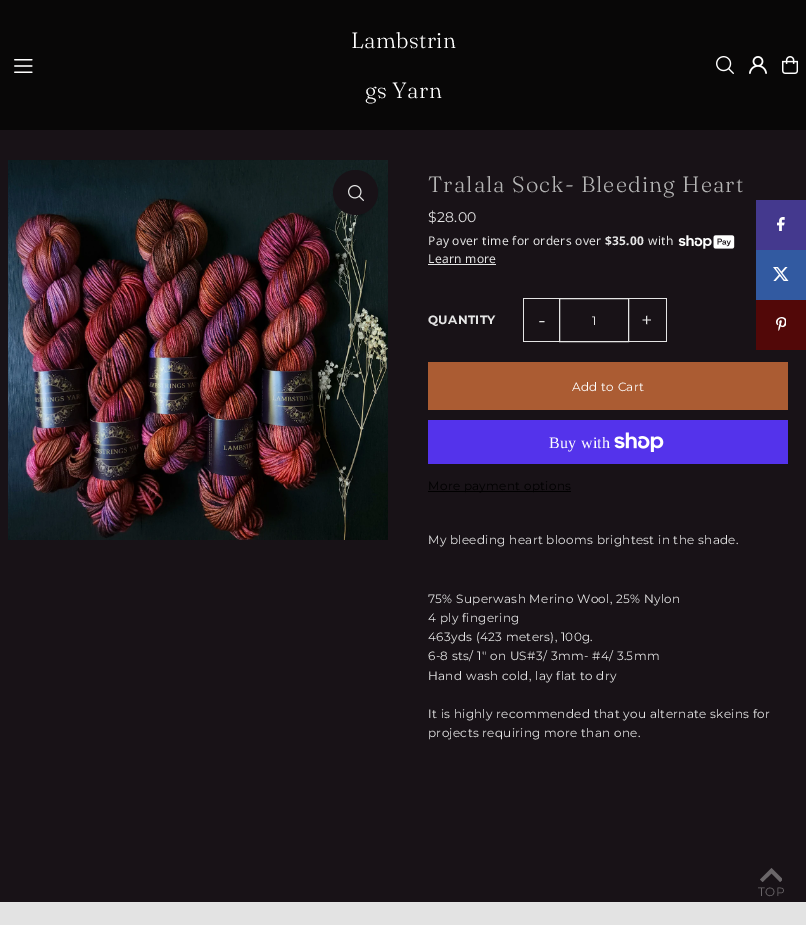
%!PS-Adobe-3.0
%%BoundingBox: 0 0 806 925
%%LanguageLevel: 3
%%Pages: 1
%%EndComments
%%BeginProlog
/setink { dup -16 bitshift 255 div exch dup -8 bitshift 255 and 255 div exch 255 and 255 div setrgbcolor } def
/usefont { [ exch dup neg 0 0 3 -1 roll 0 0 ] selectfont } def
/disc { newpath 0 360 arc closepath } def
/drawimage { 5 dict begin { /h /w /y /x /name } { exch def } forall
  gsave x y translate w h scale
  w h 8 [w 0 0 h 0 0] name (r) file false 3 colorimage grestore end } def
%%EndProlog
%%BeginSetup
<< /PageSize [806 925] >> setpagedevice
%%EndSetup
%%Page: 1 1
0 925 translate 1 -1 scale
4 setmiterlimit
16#181217 setink
0 0 806 925 rectfill
16#080707 setink
0 0 806 130 rectfill
(img1.raw) 14 59 19 14 drawimage
/Fraunces-Light 22 usefont
16#FFFFFF setink
351 48 moveto 0.3 0 (Lambstrin) ashow
365 98 moveto 0.3 0 (gs Yarn) ashow
(img2.raw) 716 56 18 18 drawimage
(img3.raw) 749 56 18 18 drawimage
(img4.raw) 782 56 16 18 drawimage
(img5.raw) 8 160 380 380 drawimage
16#181217 setink
355.5 192.5 22.5 disc fill
(img6.raw) 348 185 16 16 drawimage
16#B5B5B5 setink
428 192 moveto 1.1 0 (Tralala Sock- Bleeding Heart) ashow
/Montserrat-Regular 14 usefont
16#E5E5E5 setink
428 222 moveto 0.3 0 ($28.00) ashow
/NotoSans-Regular 12 usefont
428 245 moveto 0.3 0 (Pay over time for orders over) ashow
/NotoSans-Bold 12 usefont
605 245 moveto 0.3 0 ($35.00) ashow
/NotoSans-Regular 12 usefont
648 245 moveto 0.3 0 (with) ashow
(img7.raw) 678 235 57 14 drawimage
428 263 moveto 0.3 0 (Learn more) ashow
428 264 68 1 rectfill
/Montserrat-Bold 12 usefont
428 324 moveto 0.3 0 (QUANTITY) ashow
[
    [523 298 38 1 16#E5E5E5]
    [523 341 38 1 16#E5E5E5]
    [523 298 1 44 16#E5E5E5]
] { aload pop setink rectfill } forall
/Montserrat-Regular 20 usefont
538 327 moveto (-) show
559.5 298.5 69 43 rectstroke
/Montserrat-Regular 12 usefont
592 325 moveto 0.3 0 (1) ashow
[
    [629 298 38 1 16#E5E5E5]
    [666 298 1 44 16#E5E5E5]
    [629 341 38 1 16#E5E5E5]
] { aload pop setink rectfill } forall
/Montserrat-Regular 20 usefont
641 327 moveto (+) show
16#AB5C33 setink
428 362 360 48 rectfill
/Montserrat-Regular 12 usefont
16#FFFFFF setink
572 391 moveto 0.3 0 (Add to Cart) ashow
16#5433EB setink
428 420 360 44 rectfill
/LiberationSerif-Regular 16 usefont
16#FFFFFF setink
549 448 moveto 0.3 0 (Buy with) ashow
(img8.raw) 614 432 50 20 drawimage
16#000000 setink
428 491 143 1 rectfill
/Montserrat-Regular 12 usefont
428 490 moveto 0.3 0 (More payment options) ashow
16#E5E5E5 setink
428 544 moveto 0.3 0 (My bleeding heart blooms brightest in the shade.) ashow
428 603 moveto 0.3 0 (75% Superwash Merino Wool, 25% Nylon) ashow
428 622 moveto 0.3 0 (4 ply fingering) ashow
428 641 moveto 0.3 0 (463yds \(423 meters\), 100g.) ashow
428 660 moveto 0.3 0 (6-8 sts/ 1" on US#3/ 3mm- #4/ 3.5mm) ashow
428 680 moveto 0.3 0 (Hand wash cold, lay flat to dry) ashow
428 718 moveto 0.3 0 (It is highly recommended that you alternate skeins for) ashow
428 737 moveto 0.3 0 (projects requiring more than one.) ashow
16#44398E setink
756 200 50 50 rectfill
(img9.raw) 777 217 8 14 drawimage
16#325AA1 setink
756 250 50 50 rectfill
(img10.raw) 773 267 16 14 drawimage
16#520808 setink
756 300 50 50 rectfill
(img11.raw) 776 317 10 14 drawimage
16#E3E3E3 setink
0 903 806 22 rectfill
16#E5E5E5 setink
0 902 806 1 rectfill
gsave
760 868 22 14 rectclip
16#6A6669 setink
771.5 868 moveto 760 879.5 lineto 762.5 882 lineto 771.5 873.5 lineto 780 882 lineto 783 879.5 lineto closepath fill
grestore
16#6A6669 setink
758 896 moveto 0.3 0 (TOP) ashow
showpage
%%EOF
